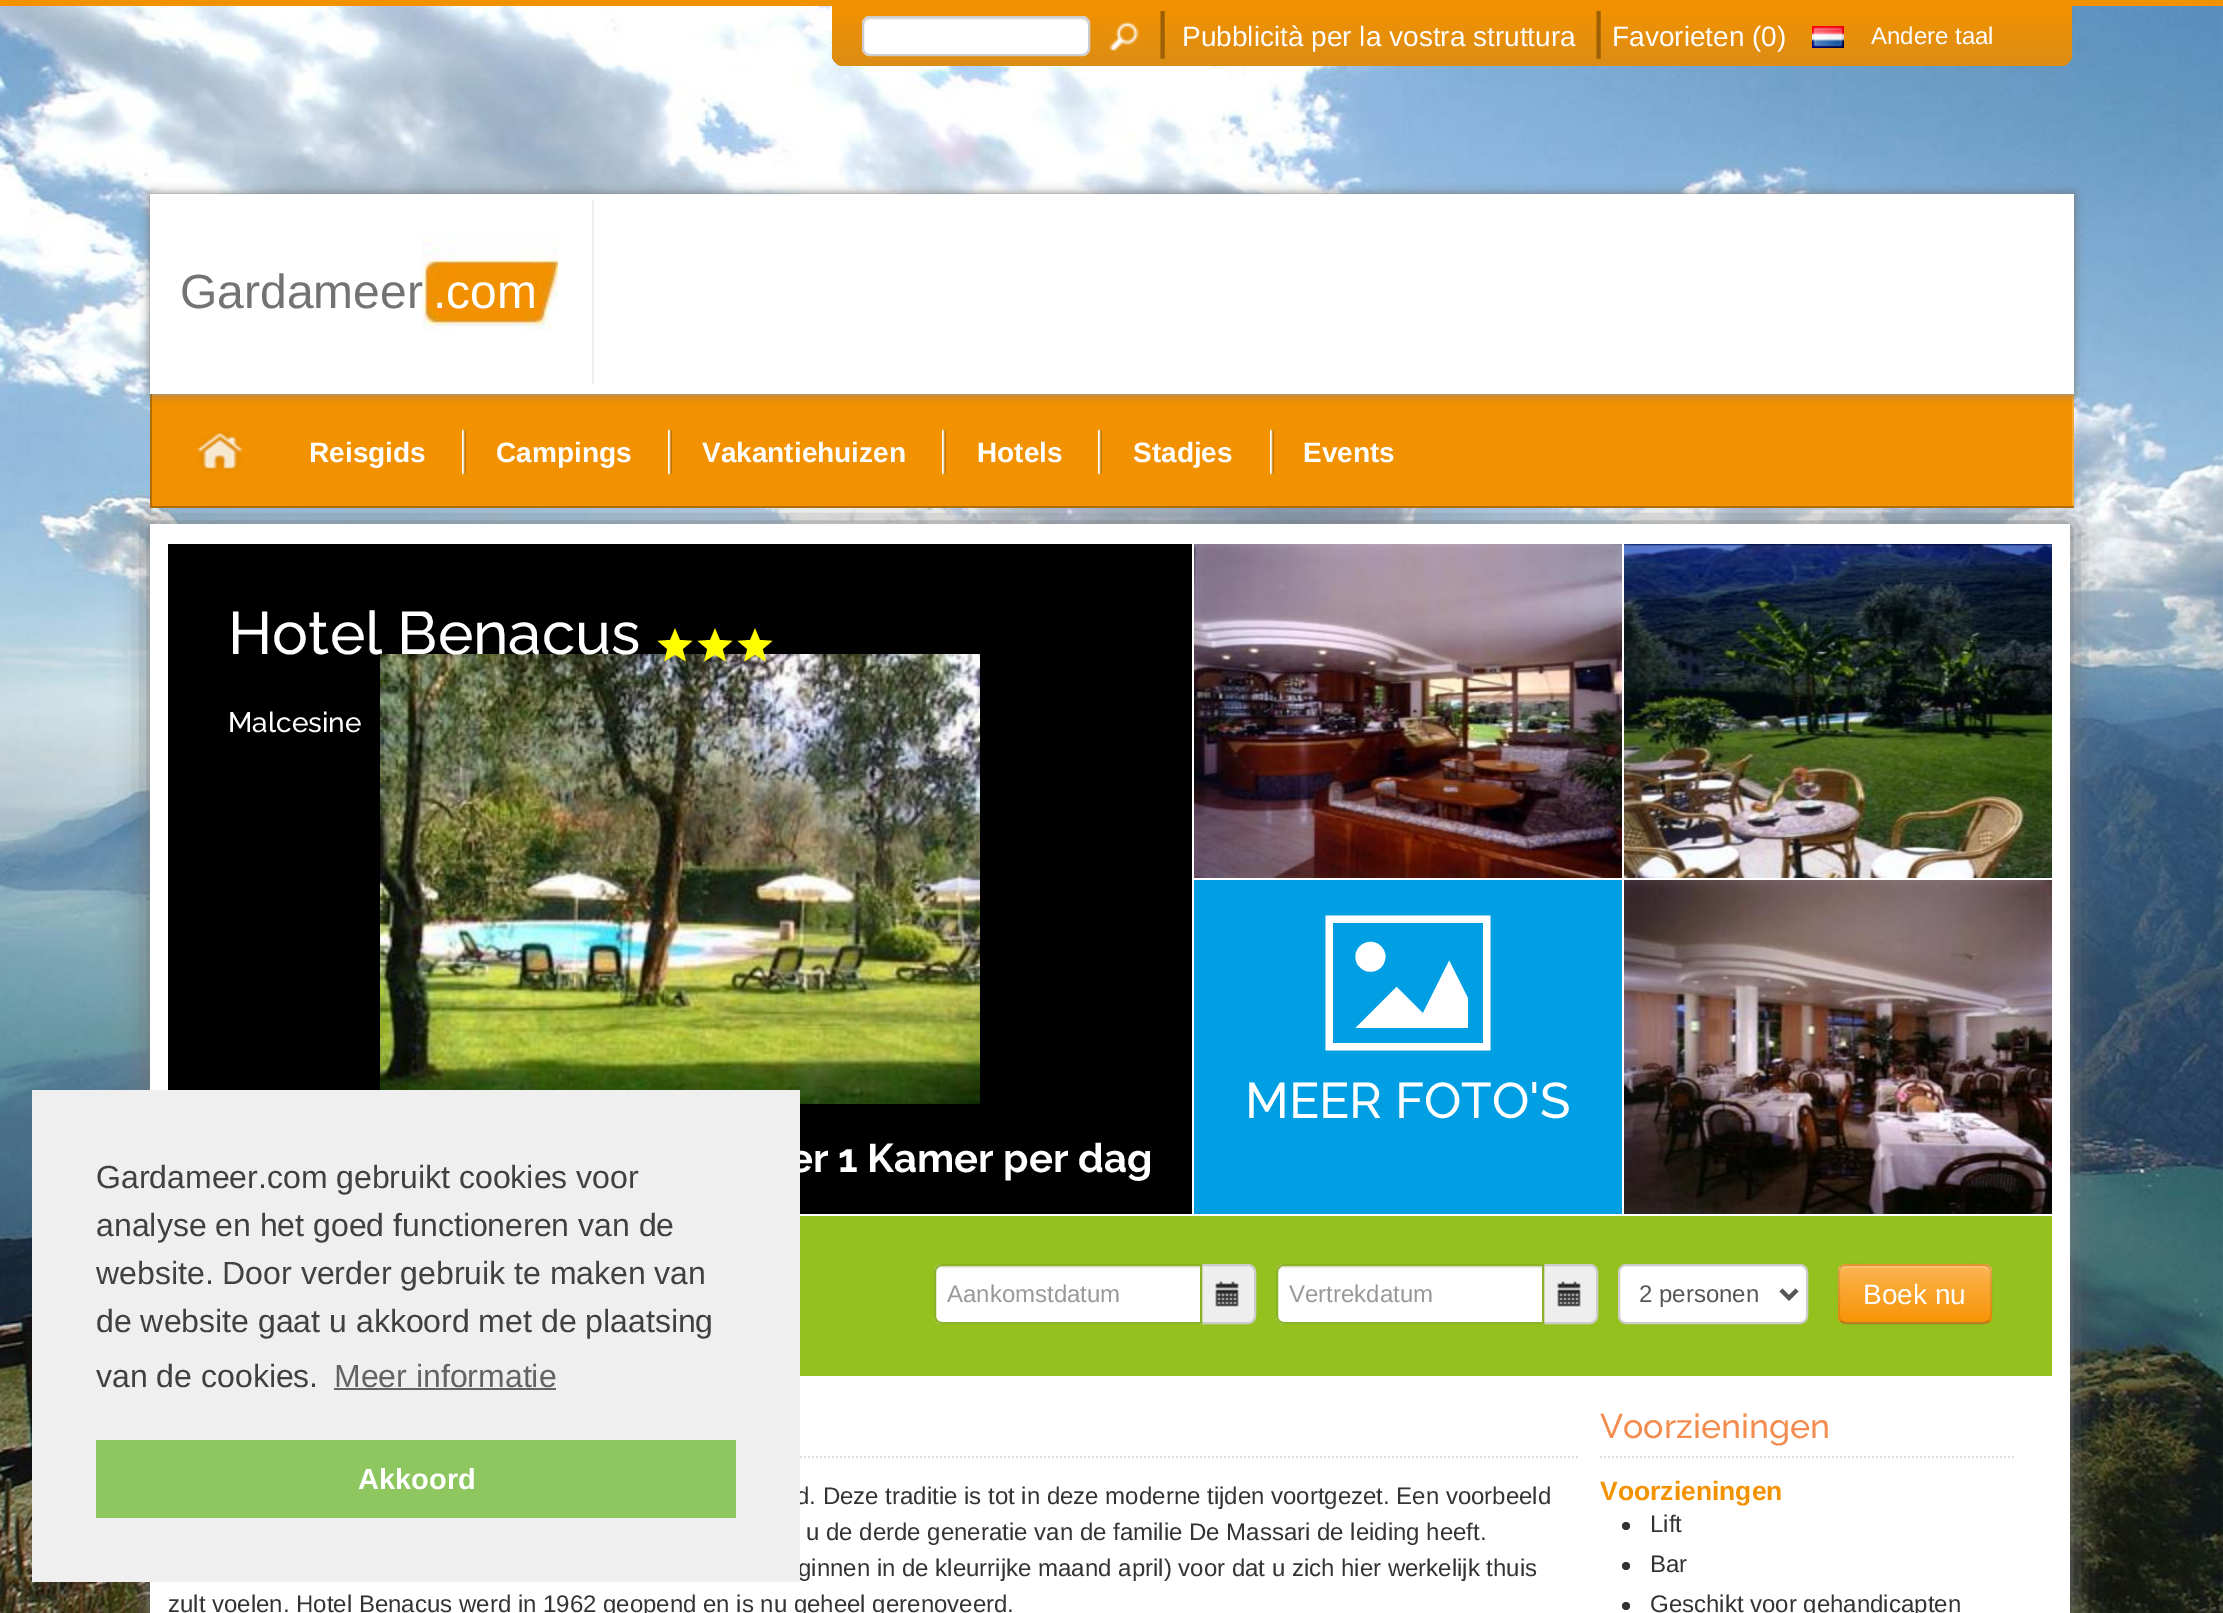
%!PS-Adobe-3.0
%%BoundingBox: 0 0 2223 1613
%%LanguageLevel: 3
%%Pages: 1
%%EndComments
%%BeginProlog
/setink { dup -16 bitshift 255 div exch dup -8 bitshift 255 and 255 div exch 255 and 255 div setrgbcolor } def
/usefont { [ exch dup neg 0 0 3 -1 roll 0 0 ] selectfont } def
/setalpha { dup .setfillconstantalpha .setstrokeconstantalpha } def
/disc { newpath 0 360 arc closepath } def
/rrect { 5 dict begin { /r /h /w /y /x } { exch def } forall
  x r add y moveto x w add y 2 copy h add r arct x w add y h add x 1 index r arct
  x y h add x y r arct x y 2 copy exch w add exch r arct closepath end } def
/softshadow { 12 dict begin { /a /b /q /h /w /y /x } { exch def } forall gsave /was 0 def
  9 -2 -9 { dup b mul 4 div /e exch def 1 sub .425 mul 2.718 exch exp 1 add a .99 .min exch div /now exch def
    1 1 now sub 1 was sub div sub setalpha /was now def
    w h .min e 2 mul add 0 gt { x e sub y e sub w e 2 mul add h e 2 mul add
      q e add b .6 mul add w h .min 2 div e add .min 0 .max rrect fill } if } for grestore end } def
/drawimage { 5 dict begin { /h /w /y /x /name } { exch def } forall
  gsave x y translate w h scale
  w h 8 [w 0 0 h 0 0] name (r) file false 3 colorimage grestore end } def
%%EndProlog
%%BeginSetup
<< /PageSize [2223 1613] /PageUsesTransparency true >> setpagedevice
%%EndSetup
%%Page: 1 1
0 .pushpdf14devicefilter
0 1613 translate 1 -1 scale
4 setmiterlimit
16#FFFFFF setink
0 0 2223 1613 rectfill
(img1.raw) 0 6 2223 1607 drawimage
16#F39200 setink
0 0 2223 6 rectfill
gsave 832 6 moveto 2072 6 lineto 2072 54 lineto 2072 60.5 2066.5 66 2060 66 curveto 844 66 lineto 837.5 66 832 60.5 832 54 curveto closepath clip newpath
<< /ShadingType 2 /ColorSpace /DeviceRGB /Coords [1452 6 1452 66] /Extend [true true] /Function << /FunctionType 2 /Domain [0 1] /C0 [0.953 0.573 0] /C1 [0.859 0.553 0.086] /N 1 >> >> shfill grestore
16#FFFFFF setink
862 16 228 40 8 rrect fill
16#ECECEC setink
870 20 moveto 1082 20 lineto 1085 20 1088 23 1088 26 curveto 1088 24 lineto 1088 21 1085 18 1082 18 curveto 870 18 lineto 867 18 864 21 864 24 curveto 864 26 lineto 864 23 867 20 870 20 curveto closepath fill
16#CCCCCC setink
2 setlinewidth
863 17 226 38 7 rrect stroke
(img2.raw) 1109 21 30 30 drawimage
/LiberationSans-Regular 51 usefont
16#9D6004 setink
1156 48 moveto (|) show
/LiberationSans-Regular 28 usefont
16#FFFFFF setink
1182 46 moveto (Pubblicità per la vostra struttura) show
/LiberationSans-Regular 51 usefont
16#9D6004 setink
1592 48 moveto (|) show
/LiberationSans-Regular 28 usefont
16#FFFFFF setink
1612 46 moveto (Favorieten \(0\)) show
(img3.raw) 1812 26 32 22 drawimage
/LiberationSans-Regular 24 usefont
1871 44 moveto (Andere taal) show
150 194 1924 200 rectfill
16#737373 setink
150 524 1920 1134 0 15 1 softshadow
[
    [152 396 1920 110 16#F39200]
    [150 394 1924 2 16#F5A833]
    [2072 394 2 114 16#F5A833]
    [150 506 1924 2 16#B16C05]
    [150 394 2 114 16#B16C05]
] { aload pop setink rectfill } forall
gsave
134 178 moveto 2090 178 lineto 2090 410 lineto 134 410 lineto closepath 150 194 moveto 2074 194 lineto 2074 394 lineto 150 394 lineto closepath eoclip newpath
16#737373 setink
150 194 1924 200 0 5 1 softshadow
grestore
16#EEEEEE setink
592 200 2 184 rectfill
(img4.raw) 421 234 137 97 drawimage
/LiberationSans-Regular 48 usefont
16#737373 setink
180 308 moveto (Gardameer) show
16#FFFFFF setink
433 308 moveto (.com) show
(img5.raw) 197 432 46 40 drawimage
/LiberationSans-Bold 28 usefont
309 462 moveto (Reisgids) show
(img6.raw) 462 429 4 46 drawimage
496 462 moveto (Campings) show
(img6.raw) 668 429 4 46 drawimage
702 462 moveto (Vakantiehuizen) show
(img6.raw) 942 429 4 46 drawimage
977 462 moveto (Hotels) show
(img6.raw) 1098 429 4 46 drawimage
1133 462 moveto (Stadjes) show
(img6.raw) 1270 429 4 46 drawimage
1303 462 moveto (Events) show
150 524 1920 1089 rectfill
16#000000 setink
168 544 1024 670 rectfill
(img7.raw) 380 654 600 450 drawimage
/Raleway-Medium 60 usefont
16#FFFFFF setink
228 654 moveto (Hotel Benacus) show
/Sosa-Regular 40 usefont
16#FFFF00 setink
655 654 moveto (eee) show
/Raleway-Medium 28 usefont
16#FFFFFF setink
228 732 moveto (Malcesine) show
/Raleway-Bold 40 usefont
789 1172 moveto (er 1 Kamer per dag) show
(img8.raw) 1194 544 428 334 drawimage
16#009FE4 setink
1194 880 428 334 rectfill
/Sosa-Regular 180 usefont
16#FFFFFF setink
1318 1024 moveto (A) show
/Raleway-Medium 50 usefont
1245 1118 moveto (MEER FOTO'S) show
(img9.raw) 1624 544 428 334 drawimage
(img10.raw) 1624 880 428 334 drawimage
16#95C11F setink
800 1216 1252 160 rectfill
16#EEEEEE setink
1201 1265 moveto 1248 1265 lineto 1252 1265 1255 1268 1255 1272 curveto 1255 1316 lineto 1255 1320 1252 1323 1248 1323 curveto 1201 1323 lineto closepath gsave fill grestore
16#CCCCCC setink
stroke
16#FFFFFF setink
942 1264 moveto 1202 1264 lineto 1202 1324 lineto 942 1324 lineto 937.5 1324 934 1320.5 934 1316 curveto 934 1272 lineto 934 1267.5 937.5 1264 942 1264 curveto closepath fill
16#ECECEC setink
942 1268 moveto 1200 1268 lineto 1200 1266 lineto 942 1266 lineto 937 1266 936 1270 936 1274 curveto 936 1271 939 1268 942 1268 curveto closepath fill
16#8CB227 setink
942 1265 moveto 1201 1265 lineto 1201 1323 lineto 942 1323 lineto 938 1323 935 1320 935 1316 curveto 935 1272 lineto 935 1268 938 1265 942 1265 curveto closepath stroke
/LiberationSans-Regular 24 usefont
16#999999 setink
947 1302 moveto (Aankomstdatum) show
(img11.raw) 1215 1281 24 27 drawimage
16#EEEEEE setink
1543 1265 moveto 1590 1265 lineto 1594 1265 1597 1268 1597 1272 curveto 1597 1316 lineto 1597 1320 1594 1323 1590 1323 curveto 1543 1323 lineto closepath gsave fill grestore
16#CCCCCC setink
stroke
16#FFFFFF setink
1284 1264 moveto 1544 1264 lineto 1544 1324 lineto 1284 1324 lineto 1279.5 1324 1276 1320.5 1276 1316 curveto 1276 1272 lineto 1276 1267.5 1279.5 1264 1284 1264 curveto closepath fill
16#ECECEC setink
1284 1268 moveto 1542 1268 lineto 1542 1266 lineto 1284 1266 lineto 1279 1266 1278 1270 1278 1274 curveto 1278 1271 1281 1268 1284 1268 curveto closepath fill
16#8CB227 setink
1284 1265 moveto 1543 1265 lineto 1543 1323 lineto 1284 1323 lineto 1280 1323 1277 1320 1277 1316 curveto 1277 1272 lineto 1277 1268 1280 1265 1284 1265 curveto closepath stroke
16#999999 setink
1289 1302 moveto (Vertrekdatum) show
(img11.raw) 1557 1281 24 27 drawimage
16#FFFFFF setink
1619 1265 188 58 7 rrect gsave fill grestore
16#CCCCCC setink
stroke
16#555555 setink
4 setlinewidth
1781 1290 moveto 1789 1298 lineto 1797 1290 lineto stroke
1639 1302 moveto (2 personen) show
16#FAA732 setink
1838 1264 154 60 8 rrect fill
gsave
1838 1264 154 60 8 rrect clip newpath
gsave 1838 1266 moveto 1992 1266 lineto 1992 1322 lineto 1838 1322 lineto closepath clip newpath
<< /ShadingType 2 /ColorSpace /DeviceRGB /Coords [1915 1266 1915 1322] /Extend [true true] /Function << /FunctionType 2 /Domain [0 1] /C0 [0.984 0.706 0.314] /C1 [0.973 0.58 0.024] /N 1 >> >> shfill grestore
grestore
0.2 setalpha
16#FFFFFF setink
1846 1268 moveto 1984 1268 lineto 1987 1268 1990 1271 1990 1274 curveto 1990 1272 lineto 1990 1269 1987 1266 1984 1266 curveto 1846 1266 lineto 1843 1266 1840 1269 1840 1272 curveto 1840 1274 lineto 1840 1271 1843 1268 1846 1268 curveto closepath fill
0.25 setalpha
16#000000 setink
2 setlinewidth
1989 1321 moveto 1987.5 1322.5 1986 1323 1984 1323 curveto 1846 1323 lineto 1844 1323 1842.5 1322.5 1841 1321 curveto stroke
0.1 setalpha
1841 1321 moveto 1838 1318 1839 1312.5 1839 1308.5 curveto 1839 1294 lineto 1839 1260.5 1834.5 1265 1869 1265 curveto 1961 1265 lineto 1995.5 1265 1991 1260.5 1991 1294 curveto 1991 1308.5 lineto 1991 1312.5 1992 1318 1989 1321 curveto stroke
/LiberationSans-Regular 28 usefont
1 setalpha
16#FFFFFF setink
1863 1304 moveto (Boek nu) show
16#DDDDDD setink
[2 2] 0 setdash
168 1457 moveto 1580 1457 lineto stroke
/LiberationSans-Regular 24 usefont
16#333333 setink
[
    [(d. Deze traditie is tot in deze moderne tijden voortgezet. Een voorbeeld) 796 1504]
    [(u de derde generatie van de familie De Massari de leiding heeft.) 806 1540]
    [(ginnen in de kleurrijke maand april\) voor dat u zich hier werkelijk thuis) 798 1576]
    [(zult voelen. Hotel Benacus werd in 1962 geopend en is nu geheel gerenoveerd.) 168 1612]
] { aload pop moveto show } forall
16#DDDDDD setink
1600 1457 moveto 2014 1457 lineto stroke
/Raleway-Medium 34 usefont
16#F28D4F setink
1600 1438 moveto (Voorzieningen) show
/LiberationSans-Bold 26.5 usefont
16#F39200 setink
1600 1500 moveto (Voorzieningen) show
16#333333 setink
1626 1526 4 disc fill
/LiberationSans-Regular 24 usefont
1650 1532 moveto (Lift) show
1626 1566 4 disc fill
1650 1572 moveto (Bar) show
1626 1606 4 disc fill
1650 1612 moveto (Geschikt voor gehandicapten) show
16#EFEFEF setink
32 1090 768 492 rectfill
/LiberationSans-Regular 32 usefont
16#404040 setink
[
    [(Gardameer.com gebruikt cookies voor) 96 1188]
    [(analyse en het goed functioneren van de) 96 1236]
    [(website. Door verder gebruik te maken van) 96 1284]
    [(de website gaat u akkoord met de plaatsing) 96 1332]
    [(van de cookies.) 96 1387]
] { aload pop moveto show } forall
16#636363 setink
334 1387 moveto (Meer informatie) show
334 1388 222 2 rectfill
16#8EC760 setink
96 1440 640 78 rectfill
/LiberationSans-Bold 29 usefont
16#FFFFFF setink
358 1489 moveto (Akkoord) show
.poppdf14devicefilter showpage
%%EOF
